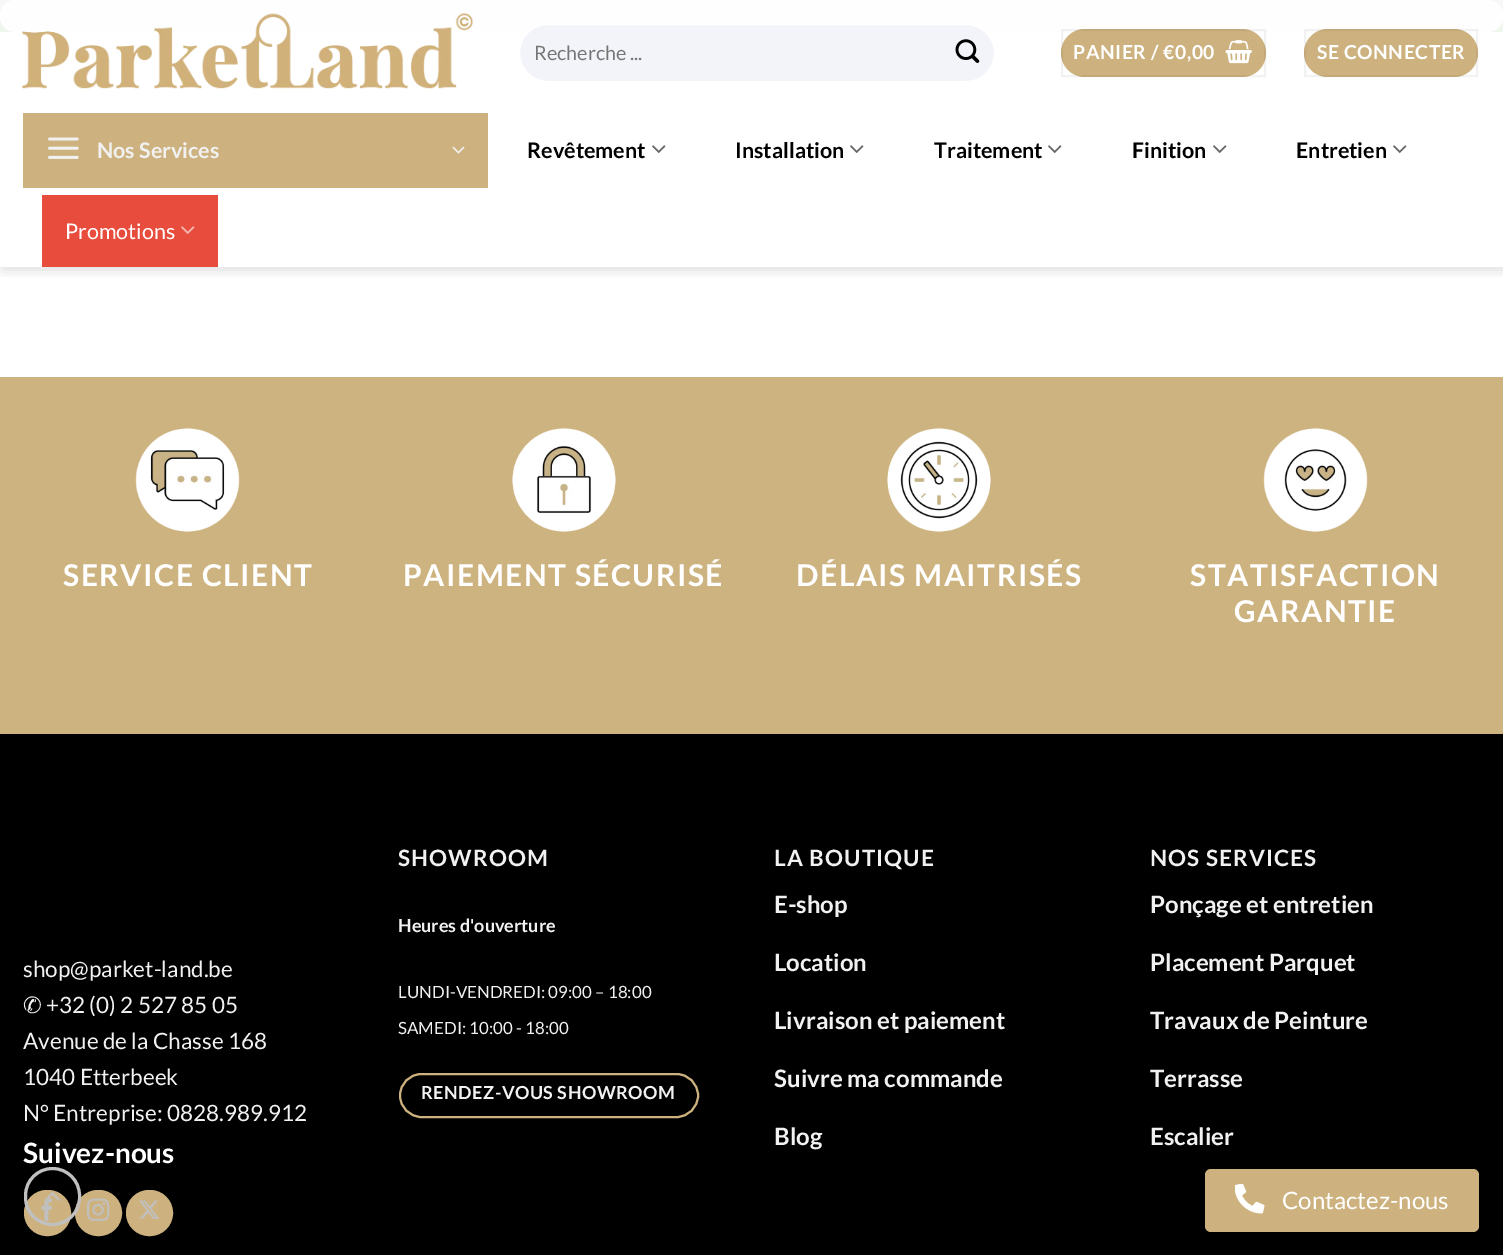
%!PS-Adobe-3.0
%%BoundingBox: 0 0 1503 1255
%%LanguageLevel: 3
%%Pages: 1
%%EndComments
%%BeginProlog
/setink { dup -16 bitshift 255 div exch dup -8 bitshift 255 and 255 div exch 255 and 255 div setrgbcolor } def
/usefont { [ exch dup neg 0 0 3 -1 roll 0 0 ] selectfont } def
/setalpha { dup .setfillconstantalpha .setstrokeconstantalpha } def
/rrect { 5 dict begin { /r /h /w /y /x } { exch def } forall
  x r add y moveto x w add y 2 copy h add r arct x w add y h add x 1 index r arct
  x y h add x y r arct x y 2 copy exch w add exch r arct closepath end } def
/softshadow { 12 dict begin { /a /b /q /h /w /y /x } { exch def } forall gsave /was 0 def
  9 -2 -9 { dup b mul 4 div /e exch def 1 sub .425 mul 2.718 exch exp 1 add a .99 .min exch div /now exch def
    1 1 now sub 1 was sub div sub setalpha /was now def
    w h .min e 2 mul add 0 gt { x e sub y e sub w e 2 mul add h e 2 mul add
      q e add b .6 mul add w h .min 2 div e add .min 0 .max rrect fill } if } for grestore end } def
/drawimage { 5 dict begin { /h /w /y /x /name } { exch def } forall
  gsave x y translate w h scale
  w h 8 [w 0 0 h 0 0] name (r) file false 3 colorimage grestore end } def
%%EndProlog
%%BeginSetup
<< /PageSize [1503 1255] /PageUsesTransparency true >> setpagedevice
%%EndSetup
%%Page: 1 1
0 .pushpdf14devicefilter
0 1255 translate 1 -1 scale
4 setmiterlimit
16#FFFFFF setink
0 0 1503 1255 rectfill
16#60A72F setink
0 17 1503 15 rectfill
16#F7F7F7 setink
0 -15 1503 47 15 rrect fill
gsave
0 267 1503 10 rectclip
16#000000 setink
2 2 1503 267 0 7.5 0.15 softshadow
grestore
0.9 setalpha
16#FFFFFF setink
0 0 1503 267 15 rrect fill
1 setalpha
(img1.raw) 22 13 451 76 drawimage
16#F3F4FA setink
519 24 476 58 29 rrect gsave fill grestore
16#FFFFFF setink
2 setlinewidth
stroke
/Lato-Regular 19.75 usefont
16#757575 setink
534 60 moveto (Recherche ...) show
(img2.raw) 955 39 25 24 drawimage
16#CDB280 setink
1061 29 205 48 24 rrect fill
0.05 setalpha
16#000000 setink
1062 30 203 46 rectstroke
/Lato-Bold 19.25 usefont
1 setalpha
16#FFFFFF setink
1073 59 moveto 0.6 0 (PANIER / €0,00) ashow
(img3.raw) 1225 40 27 24 drawimage
16#CDB280 setink
1304 29 174 48 24 rrect fill
0.05 setalpha
16#000000 setink
1305 30 172 46 rectstroke
1 setalpha
16#FFFFFF setink
1317 59 moveto 0.6 0 (SE CONNECTER) ashow
16#CDB280 setink
23 113 465 75 rectfill
(img4.raw) 48 137 31 22 drawimage
/Lato-Bold 21.5 usefont
16#F1F1F1 setink
97 158 moveto (Nos Services) show
(img5.raw) 452 146 13 8 drawimage
16#000000 setink
527 158 moveto (Revêtement) show
(img6.raw) 652 145 14 8 drawimage
735 158 moveto (Installation) show
(img6.raw) 850 145 14 8 drawimage
934 158 moveto (Traitement) show
(img6.raw) 1048 145 14 8 drawimage
1132 158 moveto (Finition) show
(img6.raw) 1213 145 14 8 drawimage
1296 158 moveto (Entretien) show
(img6.raw) 1393 145 14 8 drawimage
16#E74C3C setink
42 195 176 72 rectfill
/Lato-Regular 21.5 usefont
16#FFFFFF setink
65 239 moveto (Promotions) show
(img7.raw) 181 226 14 8 drawimage
16#CDB380 setink
0 377 1503 357 rectfill
(img8.raw) 135 428 105 104 drawimage
/Lato-Bold 30 usefont
16#FFFFFF setink
63 586 moveto 1.5 0 (SERVICE CLIENT) ashow
(img9.raw) 512 428 104 104 drawimage
403 586 moveto 1.5 0 (PAIEMENT SÉCURISÉ) ashow
(img10.raw) 887 428 104 104 drawimage
796 586 moveto 1.5 0 (DÉLAIS MAITRISÉS) ashow
(img11.raw) 1263 428 105 104 drawimage
1190 586 moveto 1.5 0 (STATISFACTION) ashow
1234 622 moveto 1.5 0 (GARANTIE) ashow
16#000000 setink
0 734 1503 521 rectfill
/Lato-Regular 22.5 usefont
16#F1F1F1 setink
23 977 moveto (shop@parket-land.be) show
/DejaVuSans-Regular 22.5 usefont
23 1013 moveto (✆) show
/Lato-Regular 22.5 usefont
[
    [(+32 \(0\) 2 527 85 05) 46 1013]
    [(Avenue de la Chasse 168) 23 1049]
    [(1040 Etterbeek) 23 1085]
    [(N° Entreprise: 0828.989.912) 23 1121]
] { aload pop moveto show } forall
/Lato-Bold 28 usefont
16#FFFFFF setink
23 1163 moveto (Suivez-nous) show
16#CDB280 setink
25 1191 45 44 22 rrect gsave fill grestore
stroke
(img12.raw) 41 1198 11 23 drawimage
76 1191 45 44 22 rrect gsave fill grestore
stroke
(img13.raw) 87 1198 23 23 drawimage
127 1191 45 44 22 rrect gsave fill grestore
stroke
(img14.raw) 139 1200 20 19 drawimage
/Lato-Bold 22.5 usefont
16#F1F1F1 setink
398 866 moveto 1.1 0 (SHOWROOM) ashow
/Lato-Bold 18 usefont
398 932 moveto (Heures d'ouverture) show
/Lato-Regular 16.9 usefont
398 998 moveto (LUNDI-VENDREDI: 09:00 – 18:00) show
398 1034 moveto (SAMEDI: 10:00 - 18:00) show
16#CDB280 setink
400 1074 298 43 21.5 rrect stroke
/Lato-Bold 18 usefont
16#F1F1F1 setink
421 1099 moveto 0.5 0 (RENDEZ-VOUS SHOWROOM) ashow
/Lato-Bold 22.5 usefont
774 866 moveto 1.1 0 (LA BOUTIQUE) ashow
/Lato-Bold 24 usefont
[
    [(E-shop) 774 913]
    [(Location) 774 971]
    [(Livraison et paiement) 774 1029]
    [(Suivre ma commande) 774 1087]
    [(Blog) 774 1145]
] { aload pop moveto show } forall
/Lato-Bold 22.5 usefont
1150 866 moveto 1.1 0 (NOS SERVICES) ashow
/Lato-Bold 24 usefont
[
    [(Ponçage et entretien) 1150 913]
    [(Placement Parquet) 1150 971]
    [(Travaux de Peinture) 1150 1029]
    [(Terrasse) 1150 1087]
    [(Escalier) 1150 1145]
] { aload pop moveto show } forall
16#C0C0C0 setink
3 setlinewidth
25.5 1168.5 54 56 27 rrect stroke
(img15.raw) 44 1192 17 9 drawimage
16#CDB280 setink
1205 1169 274 63 6 rrect fill
(img16.raw) 1235 1184 30 30 drawimage
/Lato-Regular 24 usefont
16#FFFFFF setink
1282 1209 moveto (Contactez-nous) show
.poppdf14devicefilter showpage
%%EOF
